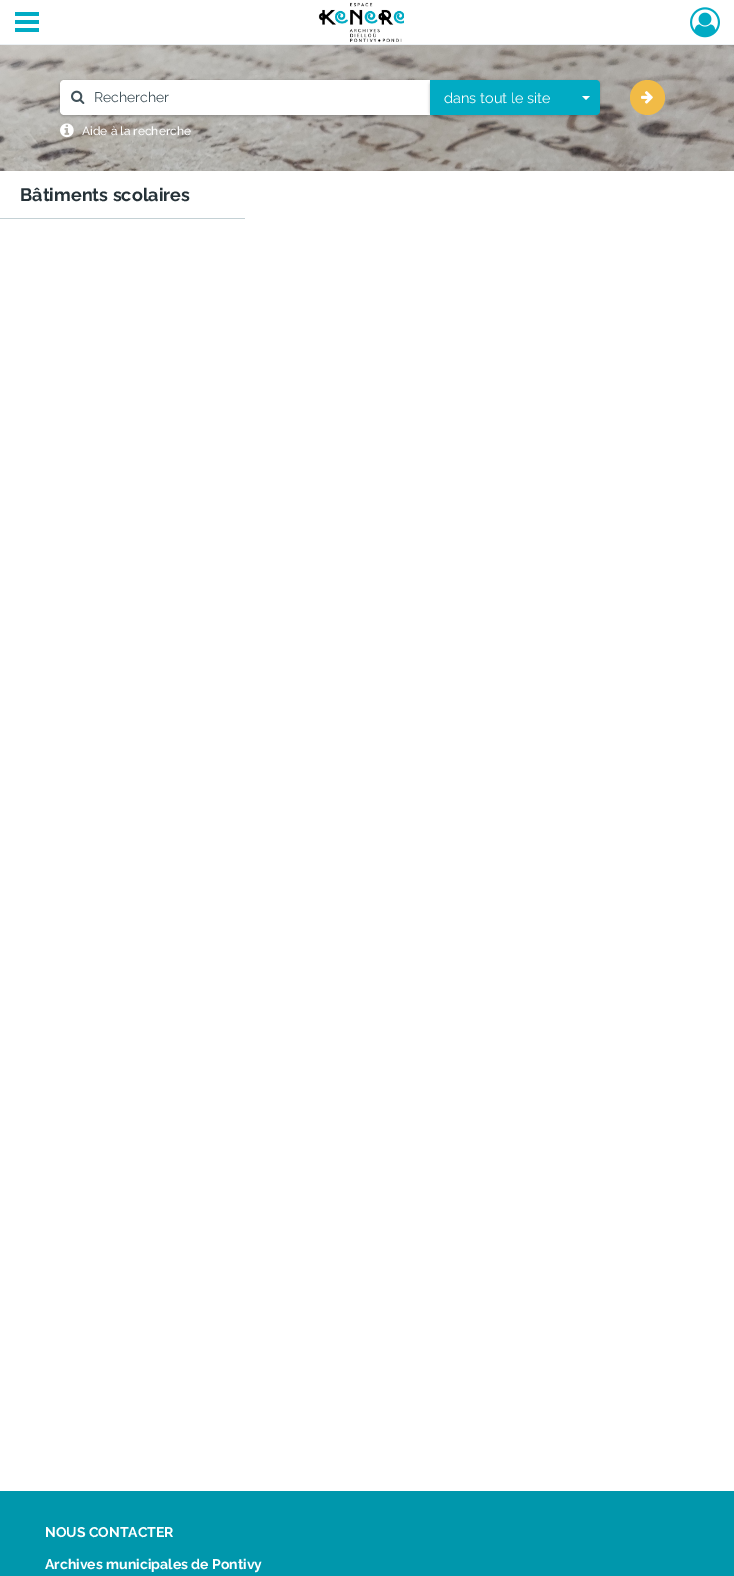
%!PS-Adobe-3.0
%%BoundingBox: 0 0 734 1576
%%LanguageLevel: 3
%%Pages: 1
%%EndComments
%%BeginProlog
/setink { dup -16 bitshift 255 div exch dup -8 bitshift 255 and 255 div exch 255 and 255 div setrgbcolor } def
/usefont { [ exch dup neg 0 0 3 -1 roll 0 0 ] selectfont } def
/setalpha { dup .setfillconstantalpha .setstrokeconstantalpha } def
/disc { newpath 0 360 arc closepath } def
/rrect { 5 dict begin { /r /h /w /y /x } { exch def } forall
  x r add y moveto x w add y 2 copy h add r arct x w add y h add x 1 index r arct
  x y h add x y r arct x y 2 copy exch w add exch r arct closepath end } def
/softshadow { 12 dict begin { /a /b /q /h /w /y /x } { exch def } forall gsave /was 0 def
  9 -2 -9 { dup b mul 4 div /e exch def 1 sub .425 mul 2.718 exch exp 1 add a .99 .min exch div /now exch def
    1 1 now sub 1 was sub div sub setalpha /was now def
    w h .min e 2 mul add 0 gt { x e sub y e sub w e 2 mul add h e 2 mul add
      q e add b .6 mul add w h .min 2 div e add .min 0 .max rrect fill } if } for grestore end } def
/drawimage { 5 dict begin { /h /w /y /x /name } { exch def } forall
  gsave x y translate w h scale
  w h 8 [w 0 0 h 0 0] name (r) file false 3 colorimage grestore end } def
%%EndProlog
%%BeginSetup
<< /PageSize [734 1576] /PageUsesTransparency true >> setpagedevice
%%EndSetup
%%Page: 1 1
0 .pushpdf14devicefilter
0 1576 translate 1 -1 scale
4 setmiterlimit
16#FFFFFF setink
0 0 734 1576 rectfill
[
    [0 44 734 1 16#ECF1F4]
    [15 12 24 4 16#01ABC4]
    [15 20 24 4 16#01ABC4]
    [15 28 24 4 16#01ABC4]
] { aload pop setink rectfill } forall
(img1.raw) 318 2 86 40 drawimage
(img2.raw) 690 7 30 31 drawimage
(img3.raw) 0 45 734 126 drawimage
16#000000 setink
60 81 370 35 4 1.5 0.25 softshadow
16#FFFFFF setink
64 80 moveto 430 80 lineto 430 115 lineto 64 115 lineto 62 115 60 113 60 111 curveto 60 84 lineto 60 82 62 80 64 80 curveto closepath fill
(img4.raw) 71 90 14 14 drawimage
/Raleway-Regular 14 usefont
16#41525A setink
94 102 moveto (Rechercher) show
16#000000 setink
430 81 170 35 4 1.5 0.25 softshadow
16#01ABC4 setink
430 80 moveto 596 80 lineto 598 80 600 82 600 84 curveto 600 111 lineto 600 113 598 115 596 115 curveto 430 115 lineto closepath fill
/Raleway-Regular 14.5 usefont
16#FFFFFF setink
444 103 moveto (dans tout le site) show
582 96 moveto 590 96 lineto 586 100 lineto closepath fill
16#F1BB46 setink
647.5 97.5 17.5 disc fill
(img5.raw) 641 91 12 13 drawimage
(img6.raw) 60 123 14 15 drawimage
/Raleway-Medium 12 usefont
16#FFFFFF setink
82 135 moveto (Aide à la recherche) show
16#C4D1D5 setink
0 218 245 1 rectfill
/Raleway-Bold 18 usefont
16#263238 setink
20 201 moveto (Bâtiments scolaires) show
16#0097AC setink
0 1491 734 85 rectfill
/Raleway-Bold 14 usefont
16#FFFFFF setink
45 1537 moveto (NOUS CONTACTER) show
45 1569 moveto (Archives municipales de Pontivy) show
.poppdf14devicefilter showpage
%%EOF
